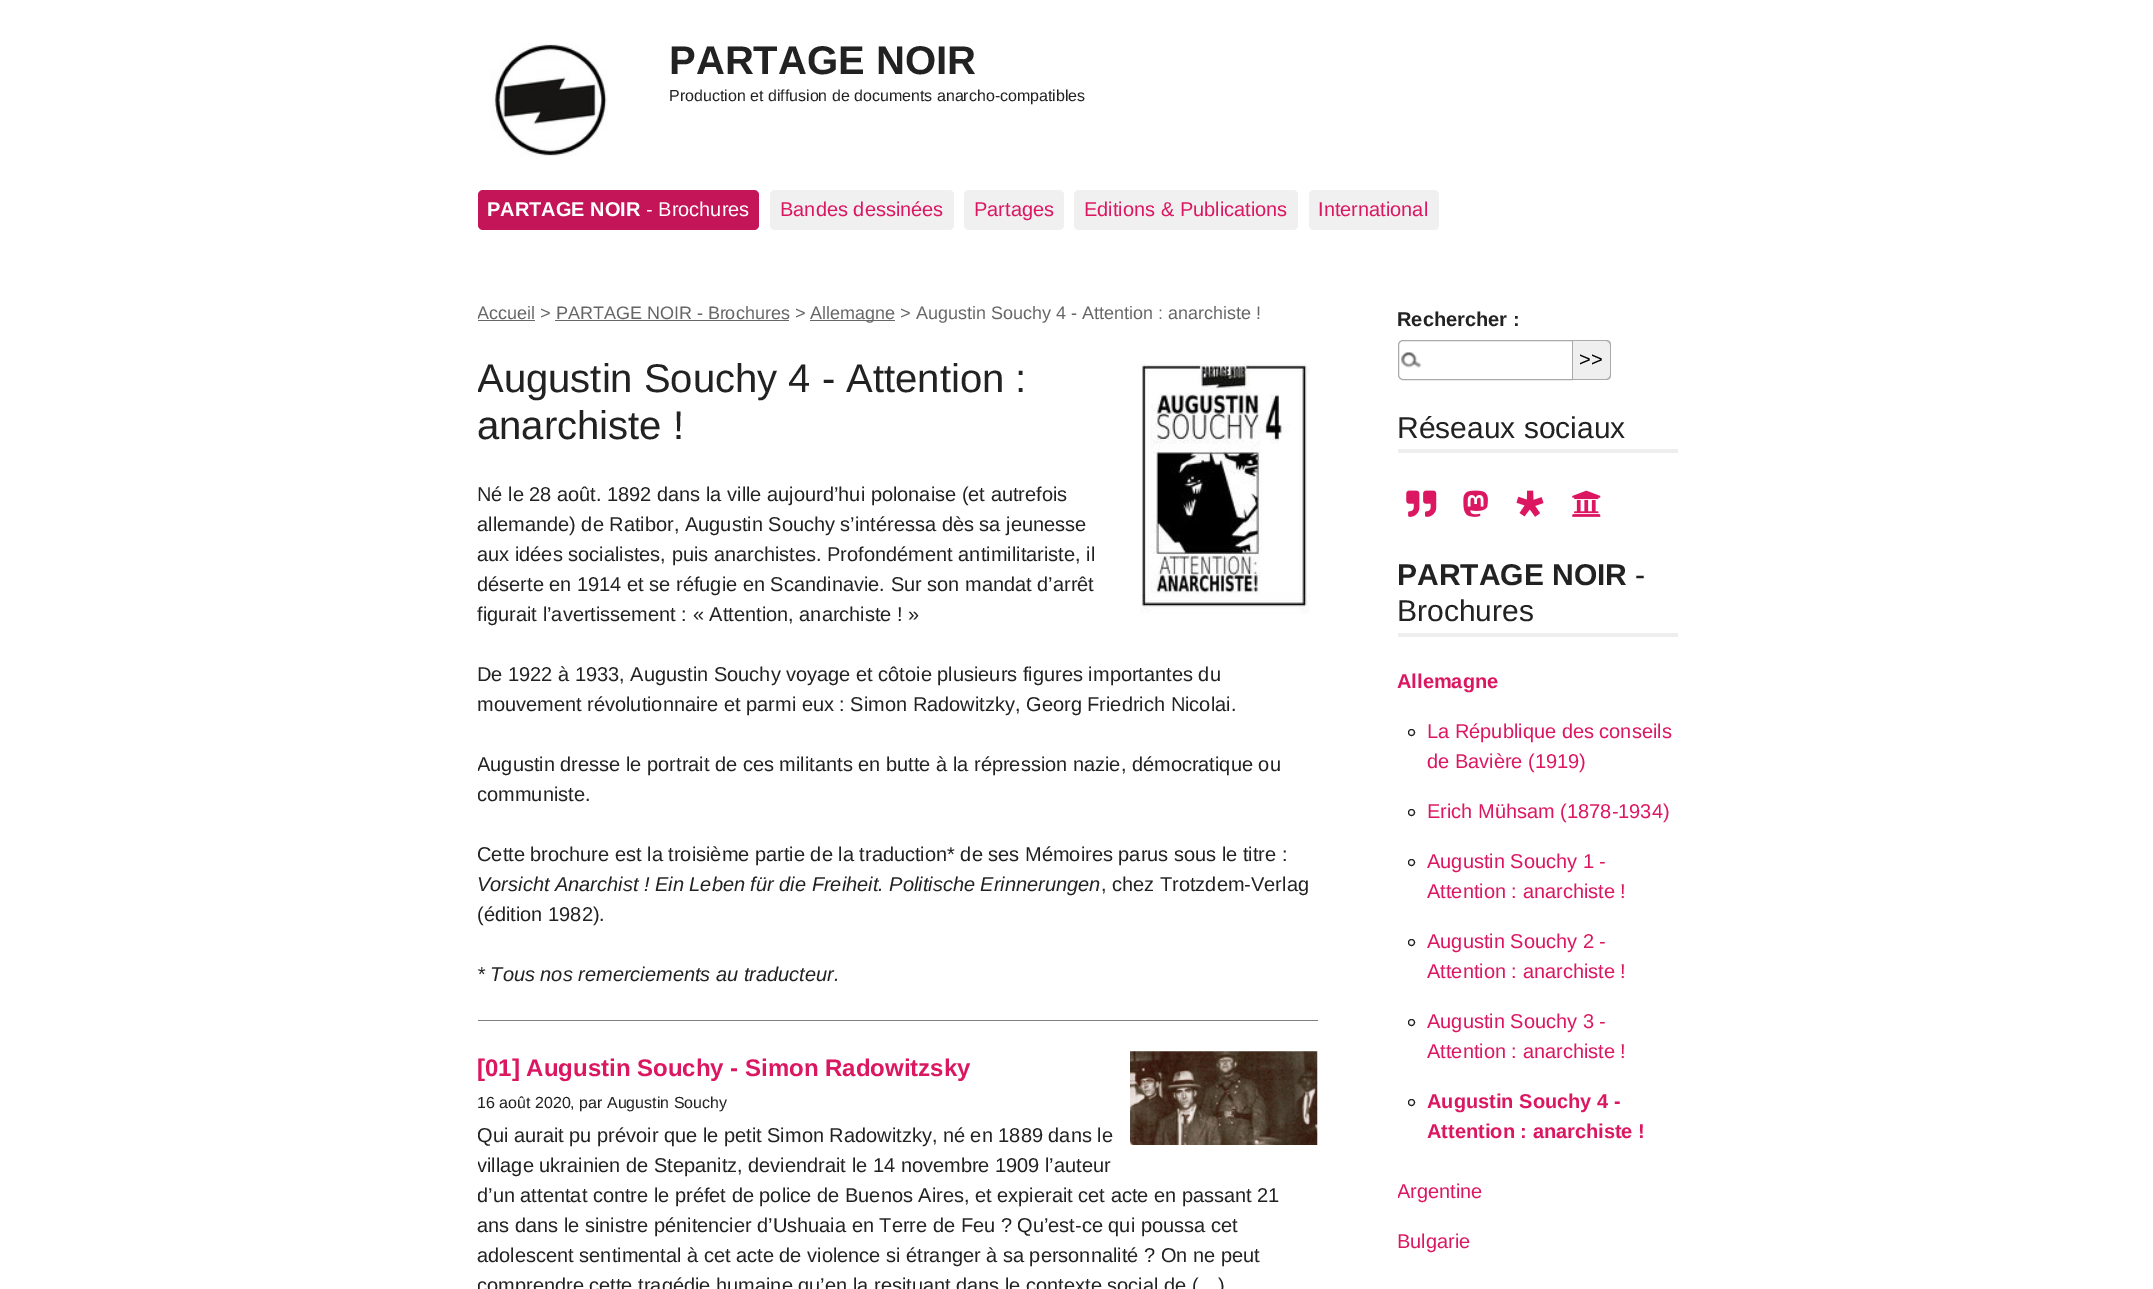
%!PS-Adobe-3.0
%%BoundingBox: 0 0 2153 1289
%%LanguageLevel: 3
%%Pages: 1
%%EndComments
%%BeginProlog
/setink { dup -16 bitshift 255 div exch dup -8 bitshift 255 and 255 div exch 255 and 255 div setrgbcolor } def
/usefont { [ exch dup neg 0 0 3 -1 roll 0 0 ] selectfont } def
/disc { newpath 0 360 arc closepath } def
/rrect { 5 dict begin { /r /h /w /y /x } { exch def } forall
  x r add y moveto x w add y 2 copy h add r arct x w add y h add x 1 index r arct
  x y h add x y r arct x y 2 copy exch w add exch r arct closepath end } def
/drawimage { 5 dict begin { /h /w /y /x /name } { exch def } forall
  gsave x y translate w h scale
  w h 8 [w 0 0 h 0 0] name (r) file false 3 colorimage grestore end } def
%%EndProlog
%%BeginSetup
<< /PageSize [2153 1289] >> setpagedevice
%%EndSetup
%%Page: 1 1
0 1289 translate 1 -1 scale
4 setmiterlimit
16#FFFFFF setink
0 0 2153 1289 rectfill
(img1.raw) 490 43 118 114 drawimage
/LiberationSans-Bold 40 usefont
16#222222 setink
669 74 moveto (PARTAGE NOIR) show
/LiberationSans-Regular 16 usefont
669 101 moveto (Production et diffusion de documents anarcho-compatibles) show
16#C41558 setink
478 190 281 40 5 rrect fill
/LiberationSans-Bold 20 usefont
16#FFFFFF setink
487 216 moveto (PARTAGE NOIR) show
/LiberationSans-Regular 20 usefont
646 216 moveto (- Brochures) show
16#F0F0F0 setink
770 190 184 40 5 rrect fill
16#DB1762 setink
780 216 moveto (Bandes dessinées) show
16#F0F0F0 setink
964 190 100 40 5 rrect fill
16#DB1762 setink
974 216 moveto (Partages) show
16#F0F0F0 setink
1074 190 224 40 5 rrect fill
16#DB1762 setink
1084 216 moveto (Editions & Publications) show
16#F0F0F0 setink
1309 190 130 40 5 rrect fill
16#DB1762 setink
1318 216 moveto (International) show
gsave
478 300 840 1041 rectclip
/LiberationSans-Regular 18 usefont
16#666666 setink
477 319 moveto (Accueil) show
grestore
16#666666 setink
478 320 57 1 rectfill
/LiberationSans-Regular 18 usefont
540 319 moveto (> PARTAGE NOIR - Brochures >) show
810 320 85 1 rectfill
810 319 moveto (Allemagne > Augustin Souchy 4 - Attention : anarchiste !) show
555 320 234 1 rectfill
gsave
478 300 840 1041 rectclip
/LiberationSans-Regular 40 usefont
16#222222 setink
477 392 moveto (Augustin Souchy 4 - Attention :) show
grestore
(img2.raw) 1140 364 170 250 drawimage
/LiberationSans-Regular 40 usefont
16#222222 setink
477 439 moveto (anarchiste !) show
/LiberationSans-Regular 20 usefont
[
    [(Né le 28 août. 1892 dans la ville aujourd’hui polonaise \(et autrefois) 477 501]
    [(allemande\) de Ratibor, Augustin Souchy s’intéressa dès sa jeunesse) 477 531]
    [(aux idées socialistes, puis anarchistes. Profondément antimilitariste, il) 477 561]
] { aload pop moveto show } forall
gsave
478 300 840 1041 rectclip
477 591 moveto (déserte en 1914 et se réfugie en Scandinavie. Sur son mandat d’arrêt) show
grestore
[
    [(figurait l’avertissement : « Attention, anarchiste ! ») 477 621]
    [(De 1922 à 1933, Augustin Souchy voyage et côtoie plusieurs figures importantes du) 477 681]
    [(mouvement révolutionnaire et parmi eux : Simon Radowitzky, Georg Friedrich Nicolai.) 477 711]
] { aload pop moveto show } forall
gsave
478 300 840 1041 rectclip
477 771 moveto (Augustin dresse le portrait de ces militants en butte à la répression nazie, démocratique ou) show
477 801 moveto (communiste.) show
grestore
477 861 moveto (Cette brochure est la troisième partie de la traduction* de ses Mémoires parus sous le titre :) show
/LiberationSans-Italic 20 usefont
477 891 moveto (Vorsicht Anarchist ! Ein Leben für die Freiheit. Politische Erinnerungen) show
/LiberationSans-Regular 20 usefont
1101 891 moveto (, chez Trotzdem-Verlag) show
477 921 moveto (\(édition 1982\).) show
/LiberationSans-Italic 20 usefont
477 981 moveto (* Tous nos remerciements au traducteur.) show
16#808080 setink
478 1020 840 1 rectfill
/LiberationSans-Bold 24 usefont
16#DB1762 setink
477 1076 moveto ([01] Augustin Souchy - Simon Radowitzsky) show
(img3.raw) 1130 1051 188 94 drawimage
/LiberationSans-Regular 16 usefont
16#222222 setink
477 1108 moveto (16 août 2020, par Augustin Souchy) show
/LiberationSans-Regular 20 usefont
477 1142 moveto (Qui aurait pu prévoir que le petit Simon Radowitzky, né en 1889 dans le) show
gsave
478 300 840 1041 rectclip
477 1172 moveto (village ukrainien de Stepanitz, deviendrait le 14 novembre 1909 l’auteur) show
477 1202 moveto (d’un attentat contre le préfet de police de Buenos Aires, et expierait cet acte en passant 21) show
grestore
477 1232 moveto (ans dans le sinistre pénitencier d’Ushuaia en Terre de Feu ? Qu’est-ce qui poussa cet) show
477 1262 moveto (adolescent sentimental à cet acte de violence si étranger à sa personnalité ? On ne peut) show
gsave
478 300 840 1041 rectclip
477 1292 moveto (comprendre cette tragédie humaine qu’en la resituant dans) show
grestore
1005 1292 moveto (le contexte social de \(…\)) show
/LiberationSans-Bold 20 usefont
1397 326 moveto (Rechercher :) show
(img4.raw) 1401 352 21 16 drawimage
16#AAAAAA setink
1403 340.5 moveto 1572.5 340.5 lineto 1572.5 379.5 lineto 1403 379.5 lineto 1400.5 379.5 1398.5 377.5 1398.5 375 curveto 1398.5 345 lineto 1398.5 342.5 1400.5 340.5 1403 340.5 curveto closepath stroke
16#EFEFEF setink
1573 340 moveto 1606 340 lineto 1609 340 1611 342 1611 345 curveto 1611 375 lineto 1611 378 1609 380 1606 380 curveto 1573 380 lineto closepath fill
16#AAAAAA setink
1572 340 moveto 1606 340 lineto 1609 340 1611 342 1611 345 curveto 1611 375 lineto 1611 378 1609 380 1606 380 curveto 1572 380 lineto closepath 1572 341 moveto 1606 341 lineto 1608 341 1610 343 1610 345 curveto 1610 375 lineto 1610 377 1608 379 1606 379 curveto 1572 379 lineto closepath eofill
/LiberationSans-Regular 20 usefont
16#000000 setink
1579 366 moveto (>>) show
16#EEEEEE setink
1398 449 280 4 rectfill
/LiberationSans-Regular 30 usefont
16#222222 setink
1397 438 moveto (Réseaux sociaux) show
(img5.raw) 1406 490 31 27 drawimage
(img6.raw) 1463 490 25 27 drawimage
(img7.raw) 1516 490 28 27 drawimage
(img8.raw) 1572 490 29 27 drawimage
16#EEEEEE setink
1398 633 280 4 rectfill
/LiberationSans-Bold 30 usefont
16#222222 setink
1397 585 moveto (PARTAGE NOIR) show
/LiberationSans-Regular 30 usefont
1635 585 moveto (-) show
1397 621 moveto (Brochures) show
/LiberationSans-Bold 20 usefont
16#DB1762 setink
1397 688 moveto (Allemagne) show
16#222222 setink
1411.5 732.5 3 disc stroke
/LiberationSans-Regular 20 usefont
16#DB1762 setink
1427 738 moveto (La République des conseils) show
1427 768 moveto (de Bavière \(1919\)) show
16#222222 setink
1411.5 812.5 3 disc stroke
16#DB1762 setink
1427 818 moveto (Erich Mühsam \(1878-1934\)) show
16#222222 setink
1411.5 862.5 3 disc stroke
16#DB1762 setink
1427 868 moveto (Augustin Souchy 1 -) show
1427 898 moveto (Attention : anarchiste !) show
16#222222 setink
1411.5 942.5 3 disc stroke
16#DB1762 setink
1427 948 moveto (Augustin Souchy 2 -) show
1427 978 moveto (Attention : anarchiste !) show
16#222222 setink
1411.5 1022.5 3 disc stroke
16#DB1762 setink
1427 1028 moveto (Augustin Souchy 3 -) show
1427 1058 moveto (Attention : anarchiste !) show
16#222222 setink
1411.5 1102.5 3 disc stroke
/LiberationSans-Bold 20 usefont
16#DB1762 setink
1427 1108 moveto (Augustin Souchy 4 -) show
1427 1138 moveto (Attention : anarchiste !) show
gsave
1398 300 280 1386 rectclip
/LiberationSans-Regular 20 usefont
1397 1198 moveto (Argentine) show
grestore
/LiberationSans-Regular 20 usefont
1397 1248 moveto (Bulgarie) show
showpage
%%EOF
